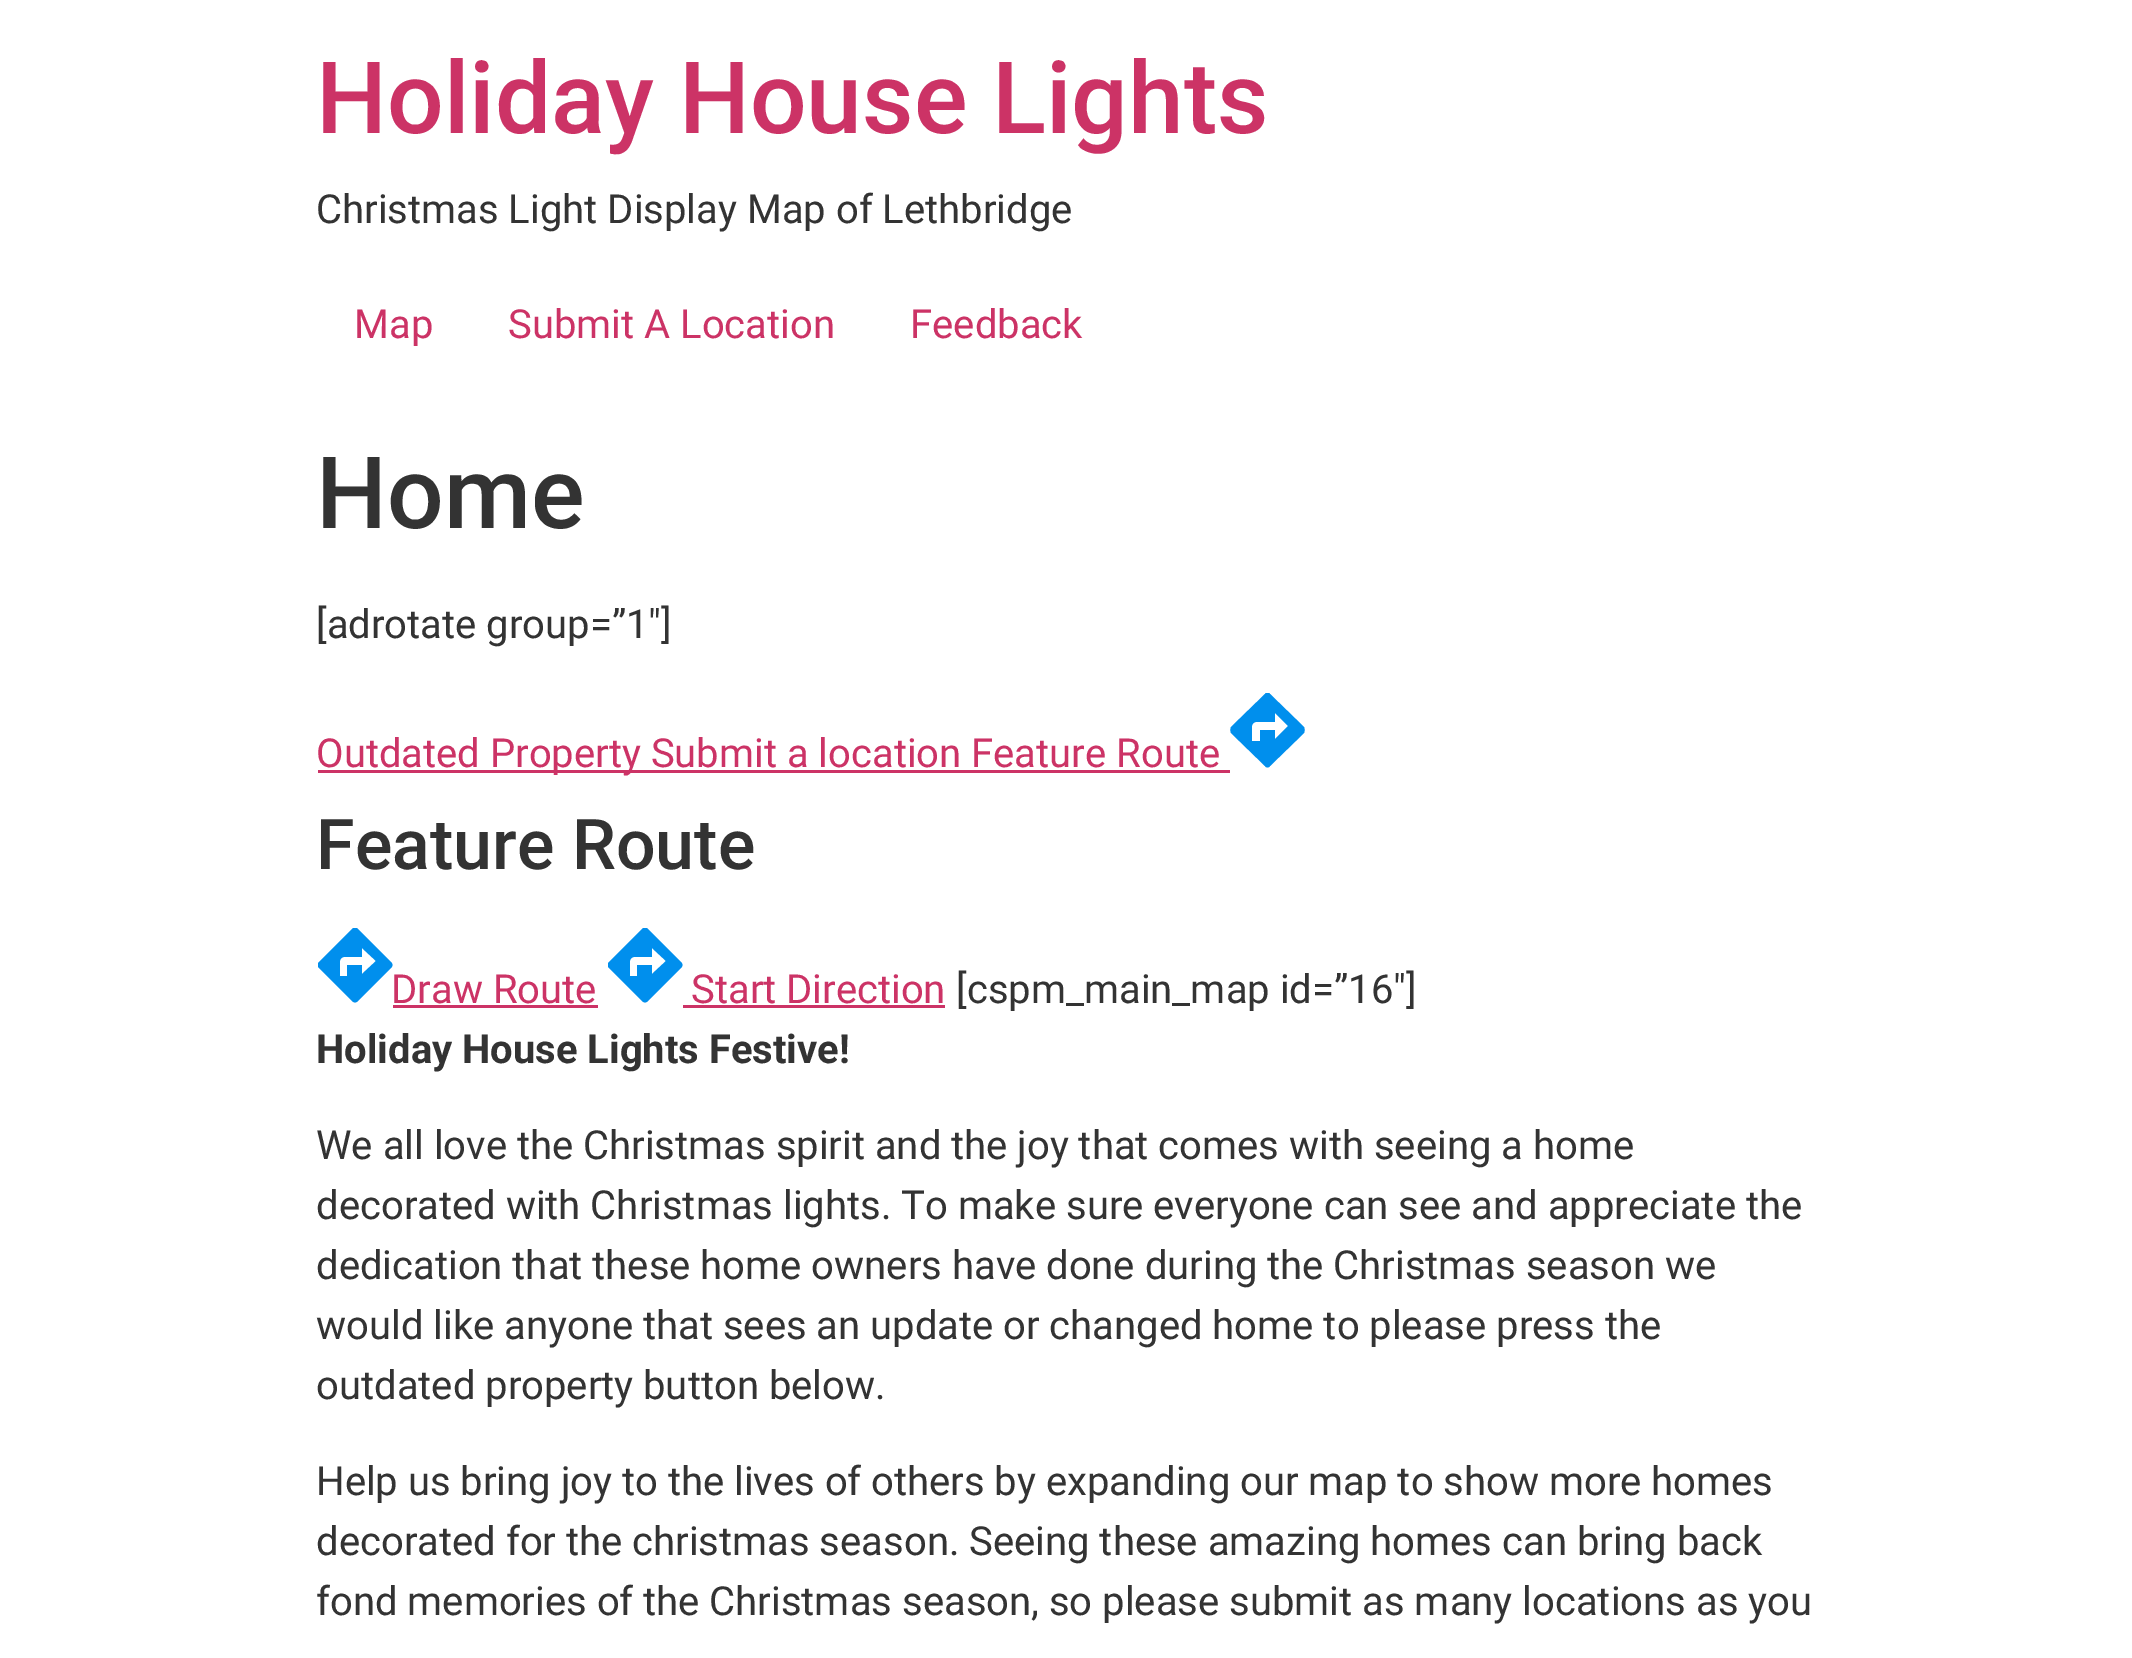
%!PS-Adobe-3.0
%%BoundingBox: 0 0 2132 1658
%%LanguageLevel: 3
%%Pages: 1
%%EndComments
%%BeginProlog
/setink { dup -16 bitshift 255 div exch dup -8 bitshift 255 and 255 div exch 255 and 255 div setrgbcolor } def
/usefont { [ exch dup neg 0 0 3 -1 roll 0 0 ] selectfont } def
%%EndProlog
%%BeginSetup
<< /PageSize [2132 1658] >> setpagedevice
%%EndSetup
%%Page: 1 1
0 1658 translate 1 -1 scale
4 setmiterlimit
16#FFFFFF setink
0 0 2132 1658 rectfill
/Roboto-Medium 100 usefont
16#CC3366 setink
316 133 moveto (Holiday House Lights) show
/Roboto-Regular 40 usefont
16#333333 setink
316 223 moveto (Christmas Light Display Map of Lethbridge) show
16#CC3366 setink
[
    [(Map) 354 338]
    [(Submit A Location) 508 338]
    [(Feedback) 910 338]
] { aload pop moveto show } forall
/Roboto-Medium 100 usefont
16#333333 setink
316 528 moveto (Home) show
/Roboto-Regular 40 usefont
316 638 moveto ([adrotate group=”1″]) show
16#CC3366 setink
318 770 912 3 rectfill
316 767 moveto (Outdated Property Submit a location Feature Route) show
gsave
1230 693 75 75 rectclip
16#008FED setink
1304 727 moveto 1270 694 lineto 1269 692 1266 692 1265 694 curveto 1231 727 lineto 1230 729 1230 731 1231 733 curveto 1265 766 lineto 1266 768 1269 768 1270 766 curveto 1304 733 lineto 1305 731 1305 729 1304 727 curveto closepath 1275 739 moveto 1275 730 lineto 1260 730 lineto 1260 741 lineto 1252 741 lineto 1252 726 lineto 1252 724 1254 722 1256 722 curveto 1275 722 lineto 1275 713 lineto 1288 726 lineto closepath fill
grestore
/Roboto-Medium 70 usefont
16#333333 setink
316 869 moveto (Feature Route) show
/Roboto-Regular 40 usefont
16#CC3366 setink
391 1003 moveto (Draw Route) show
gsave
318 928 75 75 rectclip
16#008FED setink
391 962 moveto 358 929 lineto 356 927 354 927 352 929 curveto 319 962 lineto 317 964 317 966 319 968 curveto 352 1001 lineto 354 1003 356 1003 358 1001 curveto 391 968 lineto 393 966 393 964 391 962 curveto closepath 362 974 moveto 362 965 lineto 347 965 lineto 347 976 lineto 340 976 lineto 340 961 lineto 340 959 342 957 344 957 curveto 362 957 lineto 362 948 lineto 376 961 lineto closepath fill
grestore
393 1005 205 3 rectfill
691 1003 moveto (Start Direction) show
gsave
608 928 75 75 rectclip
16#008FED setink
681 962 moveto 648 929 lineto 646 927 644 927 642 929 curveto 609 962 lineto 607 964 607 966 609 968 curveto 642 1001 lineto 644 1003 646 1003 648 1001 curveto 681 968 lineto 683 966 683 964 681 962 curveto closepath 652 974 moveto 652 965 lineto 637 965 lineto 637 976 lineto 630 976 lineto 630 961 lineto 630 959 632 957 634 957 curveto 652 957 lineto 652 948 lineto 666 961 lineto closepath fill
grestore
683 1005 262 3 rectfill
16#333333 setink
956 1003 moveto ([cspm_main_map id=”16″]) show
/Roboto-Bold 40 usefont
316 1063 moveto (Holiday House Lights Festive!) show
/Roboto-Regular 40 usefont
[
    [(We all love the Christmas spirit and the joy that comes with seeing a home) 316 1159]
    [(decorated with Christmas lights. To make sure everyone can see and appreciate the) 316 1219]
    [(dedication that these home owners have done during the Christmas season we) 316 1279]
    [(would like anyone that sees an update or changed home to please press the) 316 1339]
    [(outdated property button below.) 316 1399]
    [(Help us bring joy to the lives of others by expanding our map to show more homes) 316 1495]
    [(decorated for the christmas season. Seeing these amazing homes can bring back) 316 1555]
    [(fond memories of the Christmas season, so please submit as many locations as you) 316 1615]
] { aload pop moveto show } forall
showpage
%%EOF
